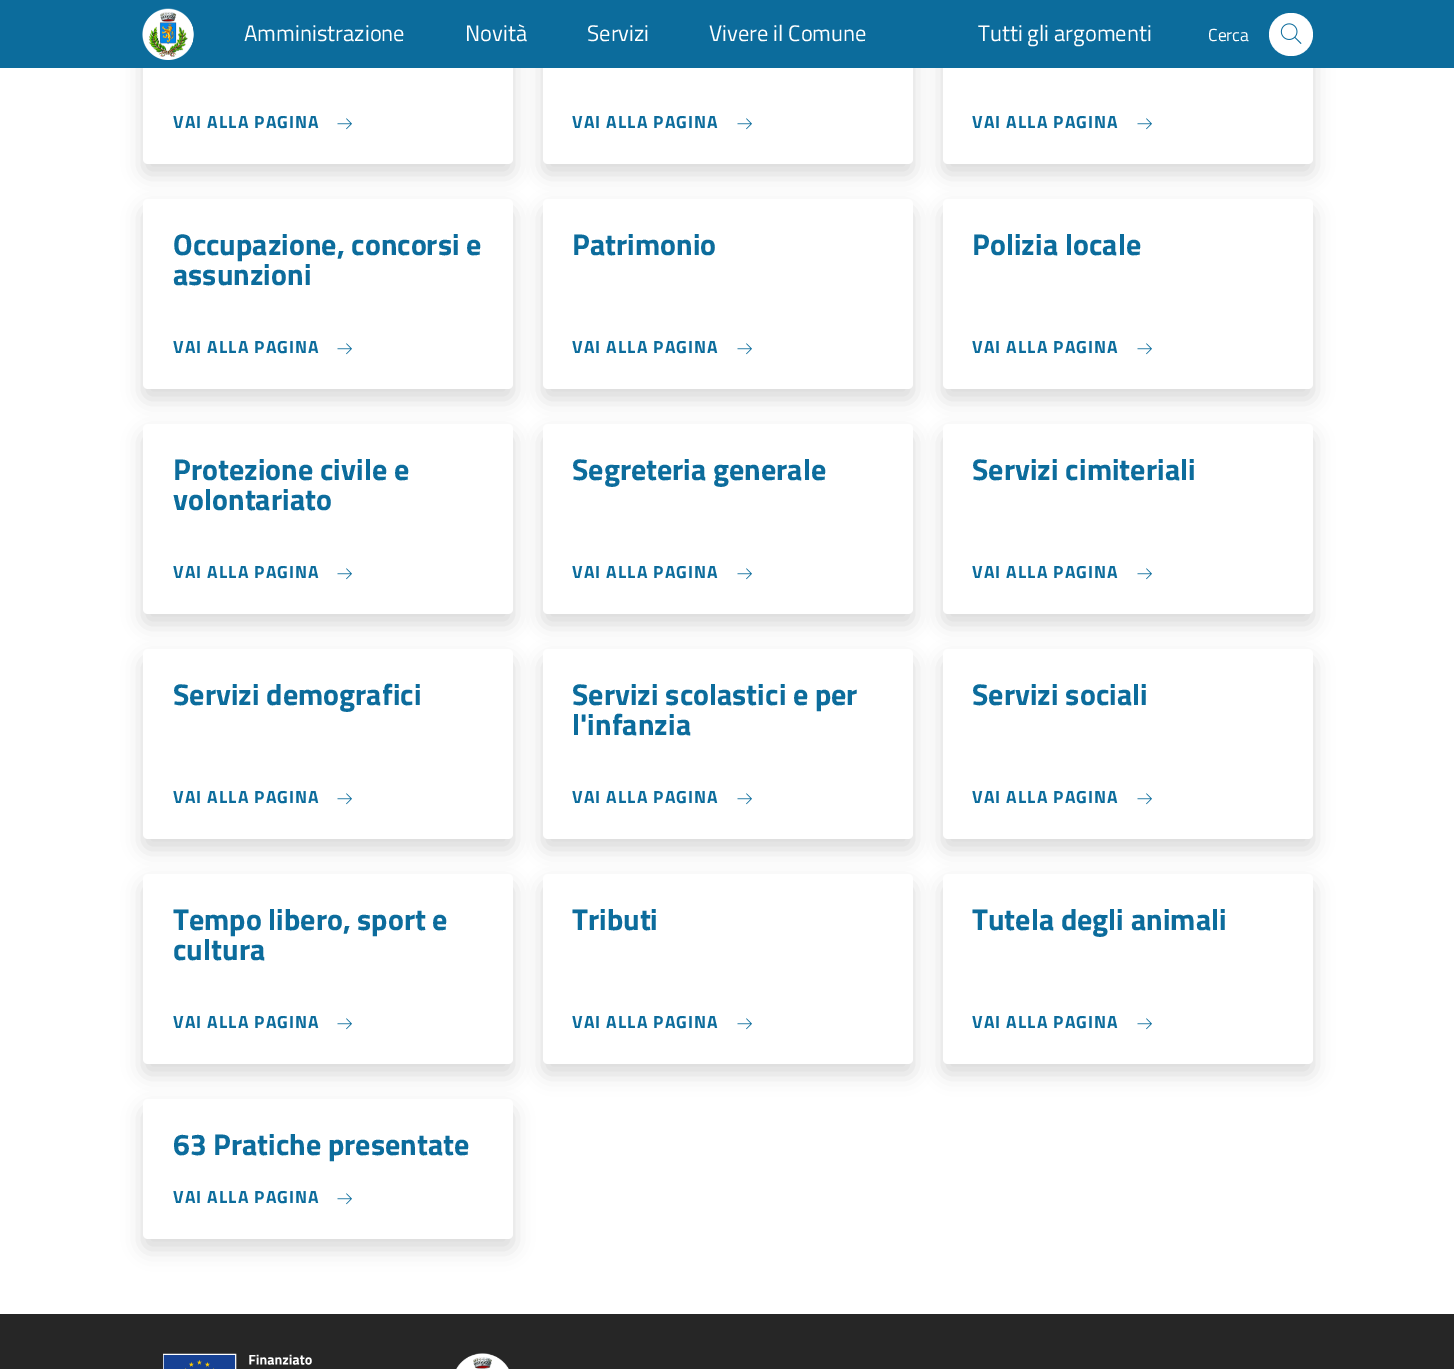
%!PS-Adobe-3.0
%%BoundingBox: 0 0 1454 1369
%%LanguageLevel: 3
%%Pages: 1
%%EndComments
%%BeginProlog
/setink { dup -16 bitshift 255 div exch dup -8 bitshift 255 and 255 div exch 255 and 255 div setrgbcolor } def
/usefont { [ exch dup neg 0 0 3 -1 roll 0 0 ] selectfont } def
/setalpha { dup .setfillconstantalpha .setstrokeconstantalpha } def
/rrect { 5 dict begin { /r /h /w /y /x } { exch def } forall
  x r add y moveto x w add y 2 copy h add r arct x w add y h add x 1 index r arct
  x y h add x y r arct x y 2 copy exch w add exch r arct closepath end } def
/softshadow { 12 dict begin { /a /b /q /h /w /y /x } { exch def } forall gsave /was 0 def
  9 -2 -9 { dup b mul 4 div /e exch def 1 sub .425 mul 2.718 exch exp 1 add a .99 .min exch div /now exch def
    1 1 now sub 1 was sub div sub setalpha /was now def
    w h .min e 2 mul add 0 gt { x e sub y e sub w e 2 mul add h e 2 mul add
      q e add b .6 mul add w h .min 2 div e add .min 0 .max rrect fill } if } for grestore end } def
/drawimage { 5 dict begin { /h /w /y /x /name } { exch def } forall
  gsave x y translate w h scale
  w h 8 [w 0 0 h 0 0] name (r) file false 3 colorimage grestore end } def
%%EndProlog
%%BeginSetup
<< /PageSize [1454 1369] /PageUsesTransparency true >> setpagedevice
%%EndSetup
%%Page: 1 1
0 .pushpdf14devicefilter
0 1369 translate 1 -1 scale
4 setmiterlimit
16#FFFFFF setink
0 0 1454 1369 rectfill
16#000000 setink
143 -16 370 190 5 10 0.15 softshadow
16#FFFFFF setink
143 -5 370 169 5 rrect fill
16#000000 setink
543 -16 370 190 5 10 0.15 softshadow
16#FFFFFF setink
543 -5 370 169 5 rrect fill
16#000000 setink
943 -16 370 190 5 10 0.15 softshadow
16#FFFFFF setink
943 -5 370 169 5 rrect fill
16#0C6C9C setink
0 0 1454 68 rectfill
(img1.raw) 142 8 52 52 drawimage
/TitilliumWeb-Regular 22.5 usefont
16#FFFFFF setink
[
    [(Amministrazione) 244 41]
    [(Novità) 465 41]
    [(Servizi) 587 41]
    [(Vivere il Comune) 709 41]
    [(Tutti gli argomenti) 978 41]
] { aload pop moveto show } forall
/TitilliumWeb-Regular 17.5 usefont
1208 41 moveto (Cerca) show
1269 13 44 43 21.5 rrect fill
(img2.raw) 1280 23 22 21 drawimage
/TitilliumWeb-Bold 17.5 usefont
16#0C6C9C setink
173 128 moveto 1.1 0 (VAI ALLA PAGINA) ashow
(img3.raw) 337 118 15 12 drawimage
572 128 moveto 1.1 0 (VAI ALLA PAGINA) ashow
(img3.raw) 737 118 15 12 drawimage
972 128 moveto 1.1 0 (VAI ALLA PAGINA) ashow
(img3.raw) 1137 118 15 12 drawimage
16#000000 setink
143 209 370 190 5 10 0.15 softshadow
16#FFFFFF setink
143 199 370 190 5 rrect fill
/TitilliumWeb-Bold 30 usefont
16#0C6C9C setink
173 255 moveto (Occupazione, concorsi e) show
173 285 moveto (assunzioni) show
/TitilliumWeb-Bold 17.5 usefont
173 353 moveto 1.1 0 (VAI ALLA PAGINA) ashow
(img3.raw) 337 343 15 12 drawimage
16#000000 setink
543 209 370 190 5 10 0.15 softshadow
16#FFFFFF setink
543 199 370 190 5 rrect fill
/TitilliumWeb-Bold 30 usefont
16#0C6C9C setink
572 255 moveto (Patrimonio) show
/TitilliumWeb-Bold 17.5 usefont
572 353 moveto 1.1 0 (VAI ALLA PAGINA) ashow
(img3.raw) 737 343 15 12 drawimage
16#000000 setink
943 209 370 190 5 10 0.15 softshadow
16#FFFFFF setink
943 199 370 190 5 rrect fill
/TitilliumWeb-Bold 30 usefont
16#0C6C9C setink
972 255 moveto (Polizia locale) show
/TitilliumWeb-Bold 17.5 usefont
972 353 moveto 1.1 0 (VAI ALLA PAGINA) ashow
(img3.raw) 1137 343 15 12 drawimage
16#000000 setink
143 434 370 190 5 10 0.15 softshadow
16#FFFFFF setink
143 424 370 190 5 rrect fill
/TitilliumWeb-Bold 30 usefont
16#0C6C9C setink
173 480 moveto (Protezione civile e) show
173 510 moveto (volontariato) show
/TitilliumWeb-Bold 17.5 usefont
173 578 moveto 1.1 0 (VAI ALLA PAGINA) ashow
(img3.raw) 337 568 15 12 drawimage
16#000000 setink
543 434 370 190 5 10 0.15 softshadow
16#FFFFFF setink
543 424 370 190 5 rrect fill
/TitilliumWeb-Bold 30 usefont
16#0C6C9C setink
572 480 moveto (Segreteria generale) show
/TitilliumWeb-Bold 17.5 usefont
572 578 moveto 1.1 0 (VAI ALLA PAGINA) ashow
(img3.raw) 737 568 15 12 drawimage
16#000000 setink
943 434 370 190 5 10 0.15 softshadow
16#FFFFFF setink
943 424 370 190 5 rrect fill
/TitilliumWeb-Bold 30 usefont
16#0C6C9C setink
972 480 moveto (Servizi cimiteriali) show
/TitilliumWeb-Bold 17.5 usefont
972 578 moveto 1.1 0 (VAI ALLA PAGINA) ashow
(img3.raw) 1137 568 15 12 drawimage
16#000000 setink
143 659 370 190 5 10 0.15 softshadow
16#FFFFFF setink
143 649 370 190 5 rrect fill
/TitilliumWeb-Bold 30 usefont
16#0C6C9C setink
173 705 moveto (Servizi demografici) show
/TitilliumWeb-Bold 17.5 usefont
173 803 moveto 1.1 0 (VAI ALLA PAGINA) ashow
(img3.raw) 337 793 15 12 drawimage
16#000000 setink
543 659 370 190 5 10 0.15 softshadow
16#FFFFFF setink
543 649 370 190 5 rrect fill
/TitilliumWeb-Bold 30 usefont
16#0C6C9C setink
572 705 moveto (Servizi scolastici e per) show
572 735 moveto (l'infanzia) show
/TitilliumWeb-Bold 17.5 usefont
572 803 moveto 1.1 0 (VAI ALLA PAGINA) ashow
(img3.raw) 737 793 15 12 drawimage
16#000000 setink
943 659 370 190 5 10 0.15 softshadow
16#FFFFFF setink
943 649 370 190 5 rrect fill
/TitilliumWeb-Bold 30 usefont
16#0C6C9C setink
972 705 moveto (Servizi sociali) show
/TitilliumWeb-Bold 17.5 usefont
972 803 moveto 1.1 0 (VAI ALLA PAGINA) ashow
(img3.raw) 1137 793 15 12 drawimage
16#000000 setink
143 884 370 190 5 10 0.15 softshadow
16#FFFFFF setink
143 874 370 190 5 rrect fill
/TitilliumWeb-Bold 30 usefont
16#0C6C9C setink
173 930 moveto (Tempo libero, sport e) show
173 960 moveto (cultura) show
/TitilliumWeb-Bold 17.5 usefont
173 1028 moveto 1.1 0 (VAI ALLA PAGINA) ashow
(img3.raw) 337 1018 15 12 drawimage
16#000000 setink
543 884 370 190 5 10 0.15 softshadow
16#FFFFFF setink
543 874 370 190 5 rrect fill
/TitilliumWeb-Bold 30 usefont
16#0C6C9C setink
572 930 moveto (Tributi) show
/TitilliumWeb-Bold 17.5 usefont
572 1028 moveto 1.1 0 (VAI ALLA PAGINA) ashow
(img3.raw) 737 1018 15 12 drawimage
16#000000 setink
943 884 370 190 5 10 0.15 softshadow
16#FFFFFF setink
943 874 370 190 5 rrect fill
/TitilliumWeb-Bold 30 usefont
16#0C6C9C setink
972 930 moveto (Tutela degli animali) show
/TitilliumWeb-Bold 17.5 usefont
972 1028 moveto 1.1 0 (VAI ALLA PAGINA) ashow
(img3.raw) 1137 1018 15 12 drawimage
16#000000 setink
143 1109 370 140 5 10 0.15 softshadow
16#FFFFFF setink
143 1099 370 140 5 rrect fill
/TitilliumWeb-Bold 30 usefont
16#0C6C9C setink
173 1155 moveto (63 Pratiche presentate) show
/TitilliumWeb-Bold 17.5 usefont
173 1203 moveto 1.1 0 (VAI ALLA PAGINA) ashow
(img3.raw) 337 1193 15 12 drawimage
16#262626 setink
0 1314 1454 55 rectfill
(img4.raw) 163 1353 149 16 drawimage
(img5.raw) 456 1353 53 16 drawimage
.poppdf14devicefilter showpage
%%EOF
